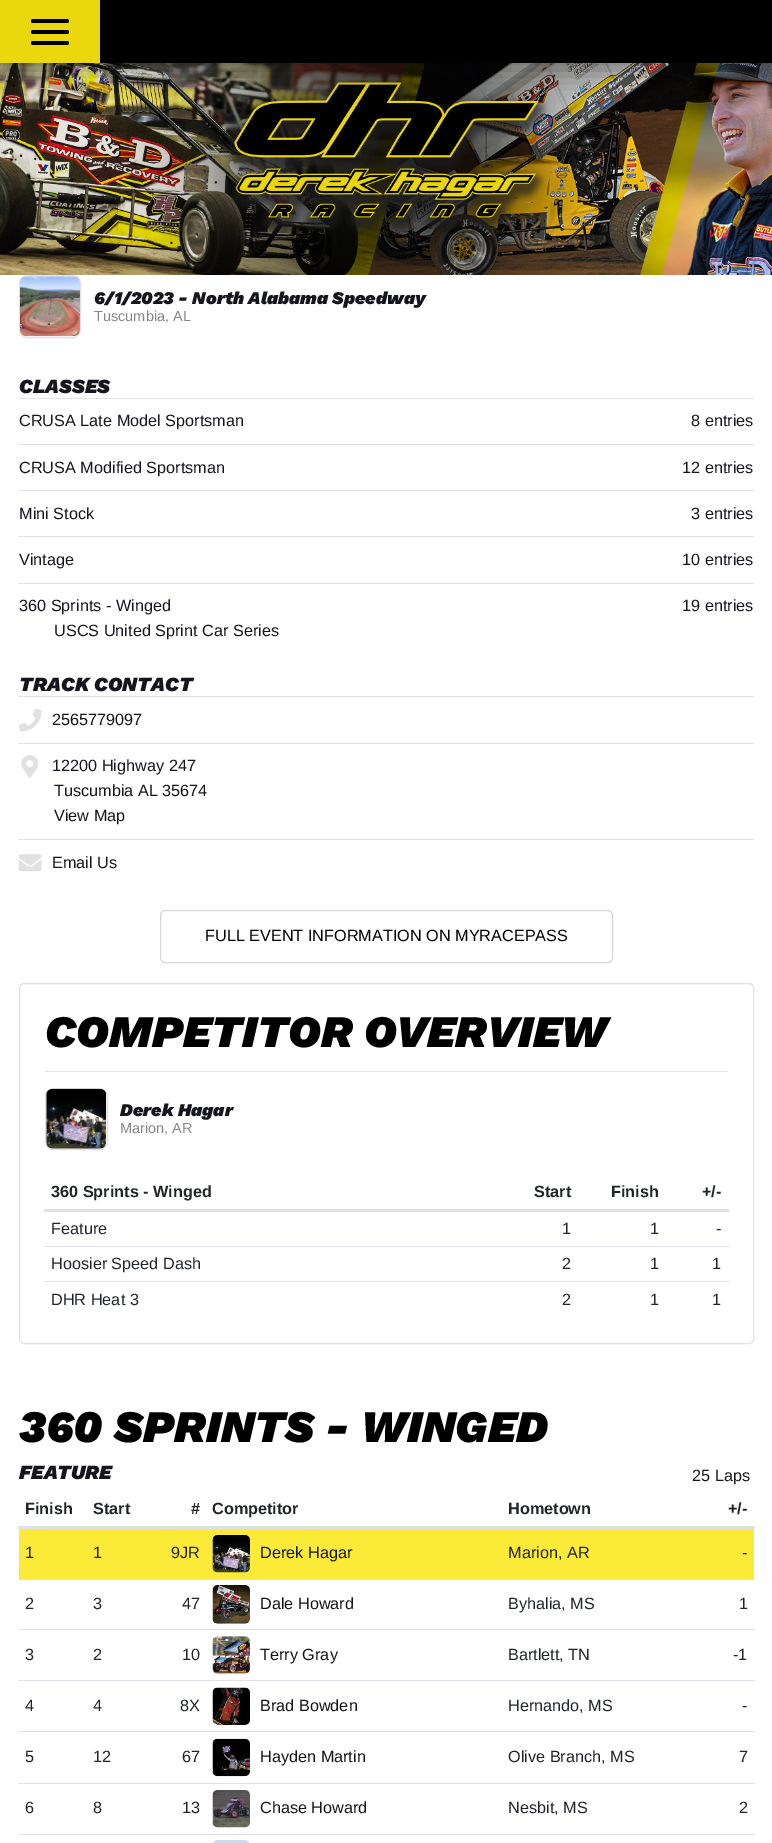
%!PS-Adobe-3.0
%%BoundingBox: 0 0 772 1843
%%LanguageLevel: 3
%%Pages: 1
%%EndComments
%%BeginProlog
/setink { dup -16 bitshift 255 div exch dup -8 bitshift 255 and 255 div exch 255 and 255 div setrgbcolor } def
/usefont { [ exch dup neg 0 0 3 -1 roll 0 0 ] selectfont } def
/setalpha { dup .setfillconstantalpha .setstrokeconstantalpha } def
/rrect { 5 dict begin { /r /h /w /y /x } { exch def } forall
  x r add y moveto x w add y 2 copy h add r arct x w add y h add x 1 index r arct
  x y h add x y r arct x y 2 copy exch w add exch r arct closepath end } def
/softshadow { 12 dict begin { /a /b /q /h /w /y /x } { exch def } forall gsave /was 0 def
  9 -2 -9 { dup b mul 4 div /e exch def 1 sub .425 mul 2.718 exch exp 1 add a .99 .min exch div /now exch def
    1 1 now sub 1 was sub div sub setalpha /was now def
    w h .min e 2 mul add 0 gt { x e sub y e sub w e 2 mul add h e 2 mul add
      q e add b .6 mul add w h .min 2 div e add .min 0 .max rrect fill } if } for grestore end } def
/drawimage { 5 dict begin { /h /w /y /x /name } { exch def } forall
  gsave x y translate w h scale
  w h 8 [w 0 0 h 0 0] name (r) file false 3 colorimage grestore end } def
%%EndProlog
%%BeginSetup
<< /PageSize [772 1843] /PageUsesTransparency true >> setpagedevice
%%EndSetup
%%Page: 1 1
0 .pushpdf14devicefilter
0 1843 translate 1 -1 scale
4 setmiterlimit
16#FFFFFF setink
0 0 772 1843 rectfill
(img1.raw) 0 63 772 212 drawimage
16#000000 setink
0 13 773 62 0 12.5 0.35 softshadow
100 0 672 63 rectfill
16#EAD70E setink
0 0 100 63 rectfill
16#000000 setink
31 19 38 4 2 rrect fill
31 30 38 4 2 rrect fill
31 41 38 4 2 rrect fill
16#E1E1E1 setink
19.5 275.5 61 62 7.5 rrect stroke
(img2.raw) 20 276 60 61 drawimage
/WorkSans-BlackItalic 17.9 usefont
16#15151E setink
94 304 moveto (6/1/2023 - North Alabama Speedway) show
/LiberationSans-Regular 14.5 usefont
16#868686 setink
94 321 moveto (Tuscumbia, AL) show
/WorkSans-BlackItalic 20 usefont
16#15151E setink
19 393 moveto (CLASSES) show
16#E1E1E1 setink
19 398 735 1 rectfill
/LiberationSans-Regular 16.25 usefont
16#15151E setink
19 426 moveto (CRUSA Late Model Sportsman) show
691 426 moveto (8 entries) show
16#E1E1E1 setink
19 444 735 1 rectfill
16#15151E setink
19 473 moveto (CRUSA Modified Sportsman) show
682 473 moveto (12 entries) show
16#E1E1E1 setink
19 490 735 1 rectfill
16#15151E setink
19 519 moveto (Mini Stock) show
691 519 moveto (3 entries) show
16#E1E1E1 setink
19 536 735 1 rectfill
16#15151E setink
19 565 moveto (Vintage) show
682 565 moveto (10 entries) show
16#E1E1E1 setink
19 583 735 1 rectfill
16#15151E setink
[
    [(360 Sprints - Winged) 19 611]
    [(19 entries) 682 611]
    [(USCS United Sprint Car Series) 54 636]
] { aload pop moveto show } forall
/WorkSans-BlackItalic 20 usefont
19 691 moveto (TRACK CONTACT) show
16#E1E1E1 setink
19 696 735 1 rectfill
(img3.raw) 19 709 23 23 drawimage
/LiberationSans-Regular 16.25 usefont
16#151515 setink
52 725 moveto (2565779097) show
16#E1E1E1 setink
19 743 735 1 rectfill
(img4.raw) 21 755 18 23 drawimage
16#15151E setink
52 771 moveto (12200 Highway 247) show
54 796 moveto (Tuscumbia AL 35674) show
16#151515 setink
54 821 moveto (View Map) show
16#E1E1E1 setink
19 839 735 1 rectfill
(img5.raw) 18 854 24 18 drawimage
16#151515 setink
52 868 moveto (Email Us) show
16#D7D7D7 setink
160.5 910.5 452 52 4.5 rrect stroke
16#000000 setink
205 941 moveto (FULL EVENT INFORMATION ON MYRACEPASS) show
16#DEE2E6 setink
19.5 983.5 734 360 4.5 rrect stroke
/WorkSans-BlackItalic 45 usefont
16#000000 setink
45 1047 moveto (COMPETITOR OVERVIEW) show
16#E6E6E6 setink
45 1071 683 1 rectfill
16#E1E1E1 setink
45.5 1088.5 62 61 7.5 rrect stroke
(img6.raw) 46 1088 61 61 drawimage
/WorkSans-BlackItalic 17.9 usefont
16#15151E setink
120 1116 moveto (Derek Hagar) show
/LiberationSans-Regular 14.5 usefont
16#868686 setink
120 1133 moveto (Marion, AR) show
/LiberationSans-Bold 16.25 usefont
16#212529 setink
[
    [(360 Sprints - Winged) 51 1197]
    [(Start) 534 1197]
    [(Finish) 611 1197]
] { aload pop moveto show } forall
16#DEE2E6 setink
44 1209 685 3 rectfill
16#212529 setink
702 1197 moveto (+/-) show
/LiberationSans-Regular 16.25 usefont
[
    [(Feature) 51 1234]
    [(1) 562 1234]
    [(1) 650 1234]
    [(-) 716 1234]
    [(Hoosier Speed Dash) 51 1269]
    [(2) 562 1269]
    [(1) 650 1269]
] { aload pop moveto show } forall
16#DEE2E6 setink
45 1246 684 1 rectfill
16#212529 setink
[
    [(1) 712 1269]
    [(DHR Heat 3) 51 1305]
    [(2) 562 1305]
    [(1) 650 1305]
] { aload pop moveto show } forall
16#DEE2E6 setink
45 1281 684 1 rectfill
16#212529 setink
712 1305 moveto (1) show
/WorkSans-BlackItalic 45 usefont
16#000000 setink
19 1442 moveto (360 SPRINTS - WINGED) show
/WorkSans-BlackItalic 20 usefont
16#15151E setink
19 1479 moveto (FEATURE) show
/LiberationSans-Regular 16.25 usefont
692 1481 moveto (25 Laps) show
/LiberationSans-Bold 16.25 usefont
16#212529 setink
[
    [(Finish) 25 1514]
    [(Start) 93 1514]
    [(#) 191 1514]
    [(Competitor) 212 1514]
    [(Hometown) 508 1514]
] { aload pop moveto show } forall
16#DEE2E6 setink
18 1526 737 3 rectfill
16#212529 setink
728 1514 moveto (+/-) show
16#FBEA37 setink
19 1529 735 50 rectfill
/LiberationSans-Regular 16.25 usefont
16#212529 setink
[
    [(1) 25 1558]
    [(1) 93 1558]
    [(9JR) 171 1558]
] { aload pop moveto show } forall
(img7.raw) 212 1535 38 38 drawimage
16#151515 setink
260 1558 moveto (Derek Hagar) show
16#212529 setink
[
    [(Marion, AR) 508 1558]
    [(-) 742 1558]
    [(2) 25 1609]
    [(3) 93 1609]
    [(47) 182 1609]
] { aload pop moveto show } forall
(img8.raw) 212 1585 38 39 drawimage
16#151515 setink
260 1609 moveto (Dale Howard) show
16#212529 setink
508 1609 moveto (Byhalia, MS) show
16#DEE2E6 setink
19 1579 736 1 rectfill
16#212529 setink
[
    [(1) 739 1609]
    [(3) 25 1660]
    [(2) 93 1660]
    [(10) 182 1660]
] { aload pop moveto show } forall
(img9.raw) 212 1636 38 38 drawimage
16#151515 setink
260 1660 moveto (Terry Gray) show
16#212529 setink
508 1660 moveto (Bartlett, TN) show
16#DEE2E6 setink
19 1629 736 1 rectfill
16#212529 setink
[
    [(-1) 733 1660]
    [(4) 25 1711]
    [(4) 93 1711]
    [(8X) 180 1711]
] { aload pop moveto show } forall
(img10.raw) 212 1687 38 38 drawimage
16#151515 setink
260 1711 moveto (Brad Bowden) show
16#212529 setink
508 1711 moveto (Hernando, MS) show
16#DEE2E6 setink
19 1680 736 1 rectfill
16#212529 setink
[
    [(-) 742 1711]
    [(5) 25 1762]
    [(12) 93 1762]
    [(67) 182 1762]
] { aload pop moveto show } forall
(img11.raw) 212 1738 38 39 drawimage
16#151515 setink
260 1762 moveto (Hayden Martin) show
16#212529 setink
508 1762 moveto (Olive Branch, MS) show
16#DEE2E6 setink
19 1731 736 1 rectfill
16#212529 setink
[
    [(7) 739 1762]
    [(6) 25 1813]
    [(8) 93 1813]
    [(13) 182 1813]
] { aload pop moveto show } forall
(img12.raw) 212 1790 38 38 drawimage
16#151515 setink
260 1813 moveto (Chase Howard) show
16#212529 setink
508 1813 moveto (Nesbit, MS) show
16#DEE2E6 setink
19 1783 736 1 rectfill
16#212529 setink
739 1813 moveto (2) show
16#DEE2E6 setink
19 1834 736 1 rectfill
(img13.raw) 213 1840 37 3 drawimage
.poppdf14devicefilter showpage
%%EOF
